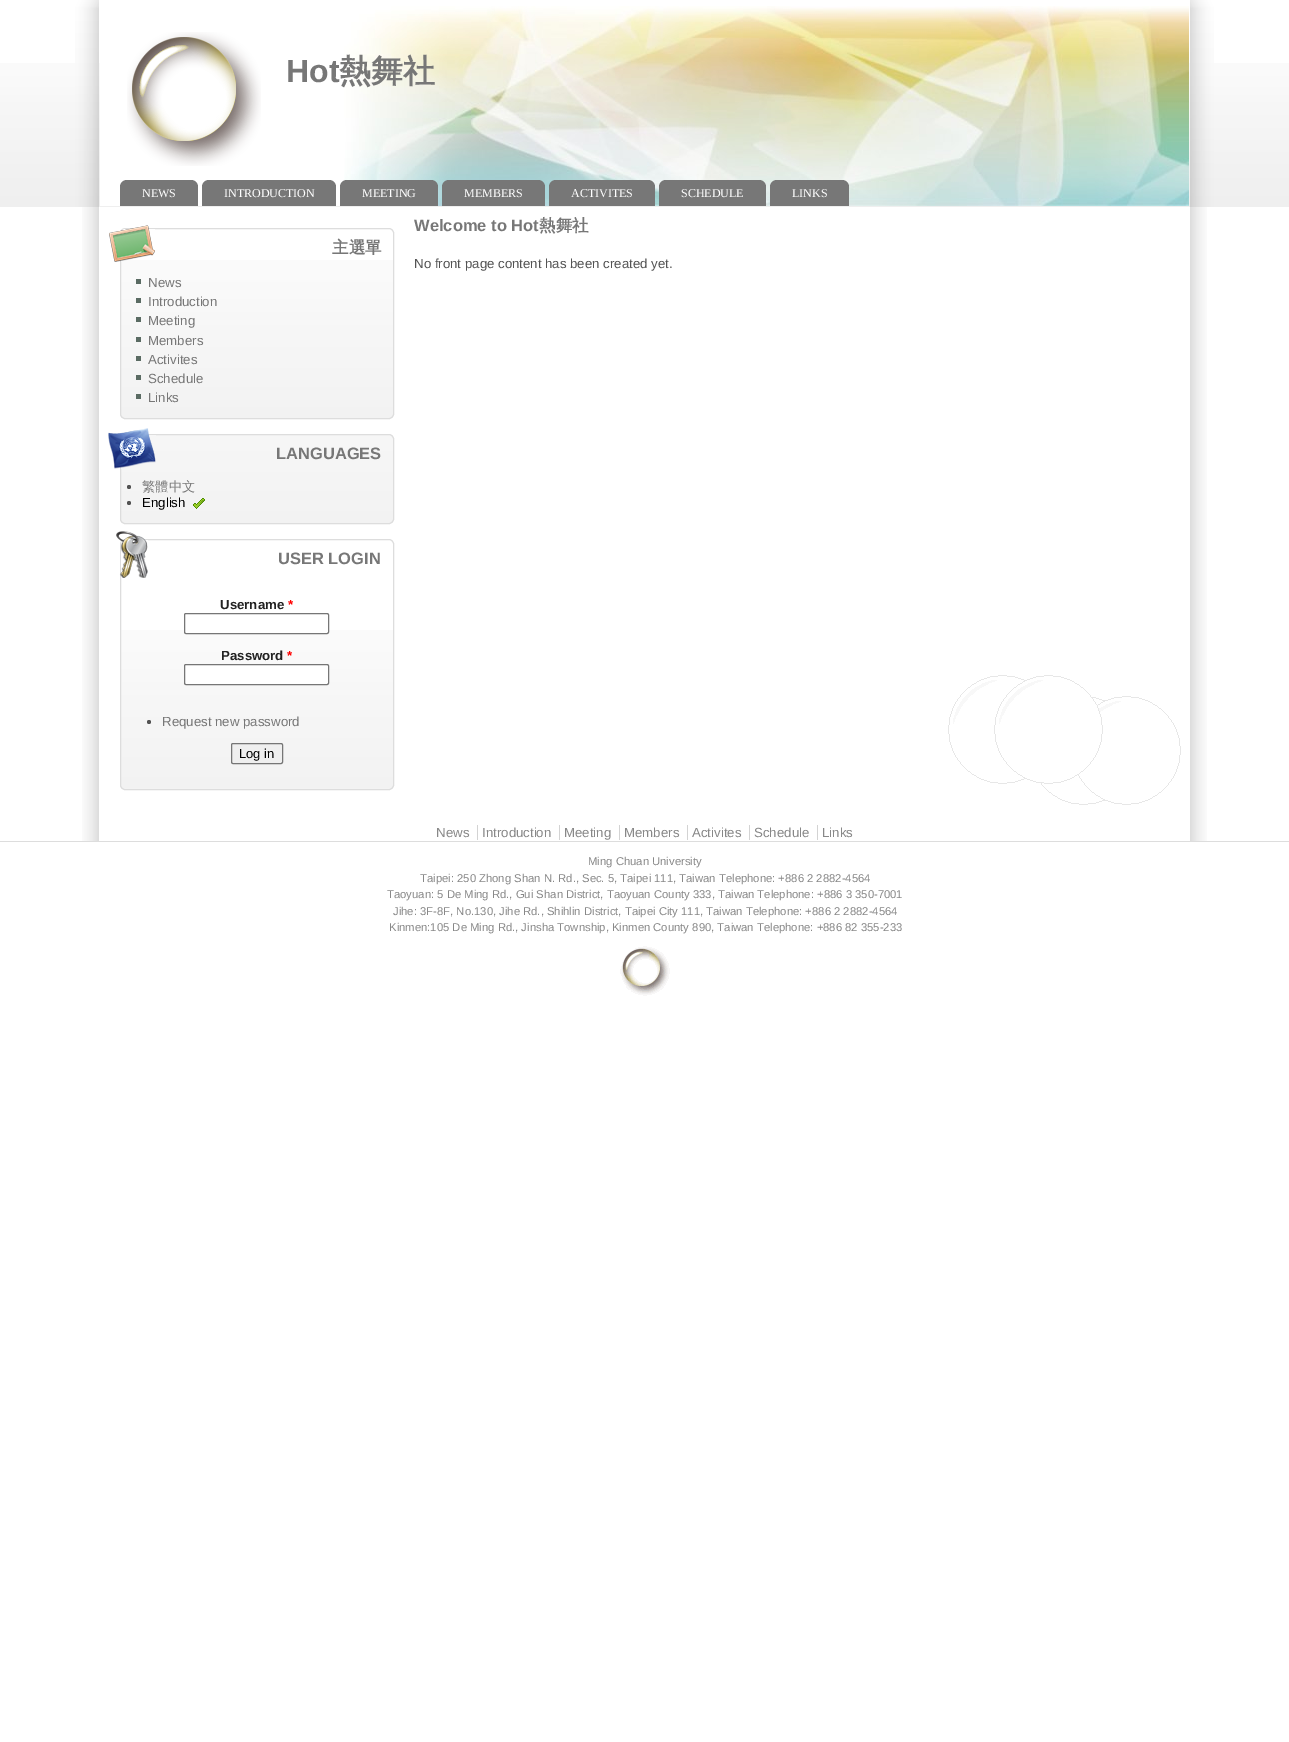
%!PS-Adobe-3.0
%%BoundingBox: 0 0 1289 1742
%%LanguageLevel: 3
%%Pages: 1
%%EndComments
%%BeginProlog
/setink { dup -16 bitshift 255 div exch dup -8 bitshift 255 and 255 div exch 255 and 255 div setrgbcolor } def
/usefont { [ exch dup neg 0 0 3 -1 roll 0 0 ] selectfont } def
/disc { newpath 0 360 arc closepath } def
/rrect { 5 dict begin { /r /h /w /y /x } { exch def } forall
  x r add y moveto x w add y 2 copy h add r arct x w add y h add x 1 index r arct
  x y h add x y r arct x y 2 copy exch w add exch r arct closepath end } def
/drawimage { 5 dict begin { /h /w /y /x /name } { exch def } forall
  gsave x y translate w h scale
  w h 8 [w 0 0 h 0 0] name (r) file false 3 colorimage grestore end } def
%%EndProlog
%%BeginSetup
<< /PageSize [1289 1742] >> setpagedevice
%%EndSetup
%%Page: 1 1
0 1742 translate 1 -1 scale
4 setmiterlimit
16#FFFFFF setink
0 0 1289 1742 rectfill
(img1.raw) 0 63 1289 144 drawimage
(img2.raw) 75 0 24 207 drawimage
(img3.raw) 1190 0 24 207 drawimage
100 63 1089 143 rectfill
(img4.raw) 344 6 845 200 drawimage
(img5.raw) 127 32 134 134 drawimage
/LiberationSans-Bold 32 usefont
16#777777 setink
286 82 moveto (Hot) show
/WenQuanYiZenHei-Bold 32 usefont
339 82 moveto (熱舞社) show
127 180 moveto 191 180 lineto 195 180 198 183 198 187 curveto 198 206 lineto 120 206 lineto 120 187 lineto 120 183 123 180 127 180 curveto closepath fill
/LiberationSerif-Regular 12 usefont
16#FFFFFF setink
142 197 moveto (NEWS) show
16#777777 setink
209 180 moveto 329 180 lineto 333 180 336 183 336 187 curveto 336 206 lineto 202 206 lineto 202 187 lineto 202 183 205 180 209 180 curveto closepath fill
16#FFFFFF setink
224 197 moveto (INTRODUCTION) show
16#777777 setink
347 180 moveto 431 180 lineto 435 180 438 183 438 187 curveto 438 206 lineto 340 206 lineto 340 187 lineto 340 183 343 180 347 180 curveto closepath fill
16#FFFFFF setink
362 197 moveto (MEETING) show
16#777777 setink
449 180 moveto 538 180 lineto 542 180 545 183 545 187 curveto 545 206 lineto 442 206 lineto 442 187 lineto 442 183 445 180 449 180 curveto closepath fill
16#FFFFFF setink
464 197 moveto (MEMBERS) show
16#777777 setink
556 180 moveto 648 180 lineto 652 180 655 183 655 187 curveto 655 206 lineto 549 206 lineto 549 187 lineto 549 183 552 180 556 180 curveto closepath fill
16#FFFFFF setink
571 197 moveto (ACTIVITES) show
16#777777 setink
666 180 moveto 759 180 lineto 763 180 766 183 766 187 curveto 766 206 lineto 659 206 lineto 659 187 lineto 659 183 662 180 666 180 curveto closepath fill
16#FFFFFF setink
681 197 moveto (SCHEDULE) show
16#777777 setink
777 180 moveto 842 180 lineto 846 180 849 183 849 187 curveto 849 206 lineto 770 206 lineto 770 187 lineto 770 183 773 180 777 180 curveto closepath fill
16#FFFFFF setink
792 197 moveto (LINKS) show
16#DDDDDD setink
0 841 1289 1 rectfill
(img6.raw) 82 207 17 634 drawimage
(img7.raw) 1190 207 17 634 drawimage
(img8.raw) 948 675 233 130 drawimage
(img9.raw) 120 260 274 158 drawimage
120.5 228.5 273 190 4.5 rrect stroke
(img10.raw) 109 225 46 37 drawimage
/WenQuanYiZenHei-Bold 16.5 usefont
16#777777 setink
332 253 moveto (主選單) show
16#5A6B63 setink
136 279 5 5 rectfill
/LiberationSans-Regular 13.25 usefont
16#777777 setink
148 287 moveto (News) show
16#5A6B63 setink
136 298 5 5 rectfill
16#777777 setink
148 306 moveto (Introduction) show
16#5A6B63 setink
136 317 5 5 rectfill
16#777777 setink
148 325 moveto (Meeting) show
16#5A6B63 setink
136 337 5 5 rectfill
16#777777 setink
148 345 moveto (Members) show
16#5A6B63 setink
136 356 5 5 rectfill
16#777777 setink
148 364 moveto (Activites) show
16#5A6B63 setink
136 375 5 5 rectfill
16#777777 setink
148 383 moveto (Schedule) show
16#5A6B63 setink
136 394 5 5 rectfill
16#777777 setink
148 402 moveto (Links) show
(img11.raw) 120 434 274 89 drawimage
16#DDDDDD setink
120.5 434.5 273 89 4.5 rrect stroke
(img12.raw) 108 428 48 41 drawimage
/LiberationSans-Bold 16.5 usefont
16#777777 setink
276 459 moveto (LANGUAGES) show
16#535353 setink
129 487 2 disc fill
/WenQuanYiZenHei-Medium 13.25 usefont
16#777777 setink
142 491 moveto (繁體中文) show
16#535353 setink
129 503 2 disc fill
/LiberationSans-Regular 13.25 usefont
16#000000 setink
142 507 moveto (English) show
(img13.raw) 193 498 12 11 drawimage
(img14.raw) 120 630 274 159 drawimage
16#DDDDDD setink
120.5 539.5 273 250 4.5 rrect stroke
(img15.raw) 116 531 32 47 drawimage
/LiberationSans-Bold 16.5 usefont
16#777777 setink
278 564 moveto (USER LOGIN) show
/LiberationSans-Bold 13.25 usefont
16#222222 setink
220 609 moveto (Username) show
16#FF0000 setink
288 609 moveto (*) show
16#FFFFFF setink
184.5 613.5 144 20 1.5 rrect gsave fill grestore
16#767676 setink
stroke
16#222222 setink
221 660 moveto (Password) show
16#FF0000 setink
287 660 moveto (*) show
16#FFFFFF setink
184.5 664.5 144 20 1.5 rrect gsave fill grestore
16#767676 setink
stroke
16#535353 setink
149 722 2 disc fill
/LiberationSans-Regular 13.25 usefont
16#777777 setink
162 726 moveto (Request new password) show
16#EFEFEF setink
231.5 743.5 51 20 1.5 rrect gsave fill grestore
16#767676 setink
stroke
/LiberationSans-Regular 13 usefont
16#000000 setink
239 758 moveto (Log in) show
/LiberationSans-Bold 16.5 usefont
16#777777 setink
414 231 moveto (Welcome to Hot) show
/WenQuanYiZenHei-Bold 16.5 usefont
539 231 moveto (熱舞社) show
/LiberationSans-Regular 13.25 usefont
16#535353 setink
414 268 moveto (No front page content has been created yet.) show
16#888888 setink
436 837 moveto (News) show
482 837 moveto (Introduction) show
16#D3D3D3 setink
477 825 1 15 rectfill
16#888888 setink
564 837 moveto (Meeting) show
16#D3D3D3 setink
559 825 1 15 rectfill
16#888888 setink
624 837 moveto (Members) show
16#D3D3D3 setink
619 825 1 15 rectfill
16#888888 setink
692 837 moveto (Activites) show
16#D3D3D3 setink
687 825 1 15 rectfill
16#888888 setink
754 837 moveto (Schedule) show
16#D3D3D3 setink
749 825 1 15 rectfill
16#888888 setink
822 837 moveto (Links) show
16#D3D3D3 setink
817 825 1 15 rectfill
/LiberationSans-Regular 11.3 usefont
16#888888 setink
[
    [(Ming Chuan University) 588 865]
    [(Taipei: 250 Zhong Shan N. Rd., Sec. 5, Taipei 111, Taiwan Telephone: +886 2 2882-4564) 420 882]
    [(Taoyuan: 5 De Ming Rd., Gui Shan District, Taoyuan County 333, Taiwan Telephone: +886 3 350-7001) 387 898]
    [(Jihe: 3F-8F, No.130, Jihe Rd., Shihlin District, Taipei City 111, Taiwan Telephone: +886 2 2882-4564) 393 915]
    [(Kinmen:105 De Ming Rd., Jinsha Township, Kinmen County 890, Taiwan Telephone: +886 82 355-233) 389 931]
] { aload pop moveto show } forall
(img16.raw) 620 946 50 50 drawimage
showpage
%%EOF
